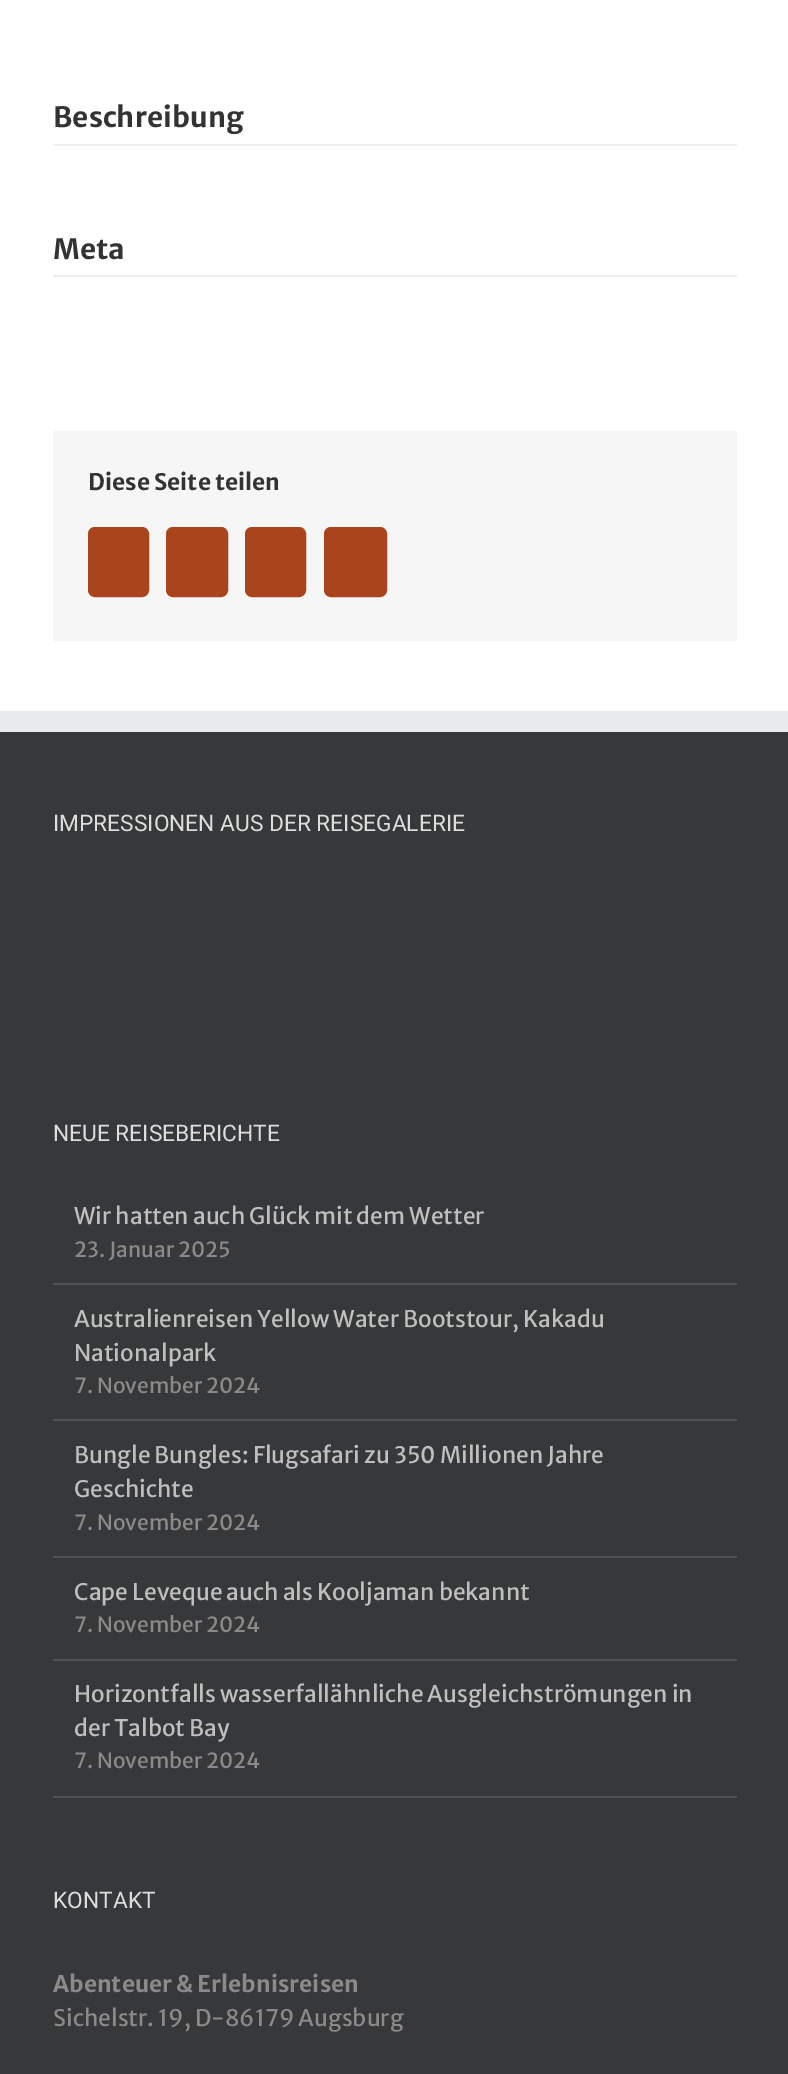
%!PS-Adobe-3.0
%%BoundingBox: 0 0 788 2074
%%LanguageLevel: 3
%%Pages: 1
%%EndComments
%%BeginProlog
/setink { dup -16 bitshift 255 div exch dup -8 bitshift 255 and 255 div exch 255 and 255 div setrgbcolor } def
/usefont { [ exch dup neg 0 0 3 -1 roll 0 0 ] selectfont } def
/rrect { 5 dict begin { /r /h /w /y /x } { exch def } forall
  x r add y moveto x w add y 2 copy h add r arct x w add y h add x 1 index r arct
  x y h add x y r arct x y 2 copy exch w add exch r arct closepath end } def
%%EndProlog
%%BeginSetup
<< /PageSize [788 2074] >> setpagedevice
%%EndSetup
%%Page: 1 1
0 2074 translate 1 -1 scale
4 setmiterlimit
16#FFFFFF setink
0 0 788 2074 rectfill
16#EEEEEE setink
53 144 684 2 rectfill
/MerriweatherSans-Bold 28 usefont
16#333333 setink
53 127 moveto (Beschreibung) show
16#EEEEEE setink
53 275 684 2 rectfill
16#333333 setink
53 259 moveto (Meta) show
16#F6F6F6 setink
53 431 684 210 rectfill
/MerriweatherSans-Bold 22.75 usefont
16#333333 setink
88 490 moveto (Diese Seite teilen) show
16#A9441C setink
89 528 59 68 6 rrect gsave fill grestore
2 setlinewidth
stroke
167 528 60 68 6 rrect gsave fill grestore
stroke
246 528 59 68 6 rrect gsave fill grestore
stroke
325 528 61 68 6 rrect gsave fill grestore
stroke
16#363839 setink
0 732 788 1342 rectfill
16#E9EAEE setink
0 711 788 21 rectfill
/Roboto-Regular 22.75 usefont
16#DDDDDD setink
53 831 moveto (IMPRESSIONEN AUS DER REISEGALERIE) show
53 1141 moveto (NEUE REISEBERICHTE) show
16#505152 setink
53 1283 684 2 rectfill
/MerriweatherSans-Regular 22.75 usefont
16#BFBFBF setink
74 1224 moveto (Wir hatten auch Glück mit dem Wetter) show
/MerriweatherSans-Regular 21 usefont
16#8C8989 setink
74 1257 moveto (23. Januar 2025) show
16#505152 setink
53 1419 684 2 rectfill
/MerriweatherSans-Regular 22.75 usefont
16#BFBFBF setink
74 1327 moveto (Australienreisen Yellow Water Bootstour, Kakadu) show
74 1361 moveto (Nationalpark) show
/MerriweatherSans-Regular 21 usefont
16#8C8989 setink
74 1393 moveto (7. November 2024) show
16#505152 setink
53 1556 684 2 rectfill
/MerriweatherSans-Regular 22.75 usefont
16#BFBFBF setink
74 1463 moveto (Bungle Bungles: Flugsafari zu 350 Millionen Jahre) show
74 1497 moveto (Geschichte) show
/MerriweatherSans-Regular 21 usefont
16#8C8989 setink
74 1530 moveto (7. November 2024) show
16#505152 setink
53 1659 684 2 rectfill
/MerriweatherSans-Regular 22.75 usefont
16#BFBFBF setink
74 1600 moveto (Cape Leveque auch als Kooljaman bekannt) show
/MerriweatherSans-Regular 21 usefont
16#8C8989 setink
74 1632 moveto (7. November 2024) show
16#505152 setink
53 1796 684 2 rectfill
/MerriweatherSans-Regular 22.75 usefont
16#BFBFBF setink
74 1702 moveto (Horizontfalls wasserfallähnliche Ausgleichströmungen in) show
74 1736 moveto (der Talbot Bay) show
/MerriweatherSans-Regular 21 usefont
16#8C8989 setink
74 1768 moveto (7. November 2024) show
/Roboto-Regular 22.75 usefont
16#DDDDDD setink
53 1908 moveto (KONTAKT) show
/MerriweatherSans-Bold 22.75 usefont
16#8C8989 setink
53 1992 moveto (Abenteuer & Erlebnisreisen) show
/MerriweatherSans-Regular 22.75 usefont
53 2026 moveto (Sichelstr. 19, D-86179 Augsburg) show
showpage
%%EOF
